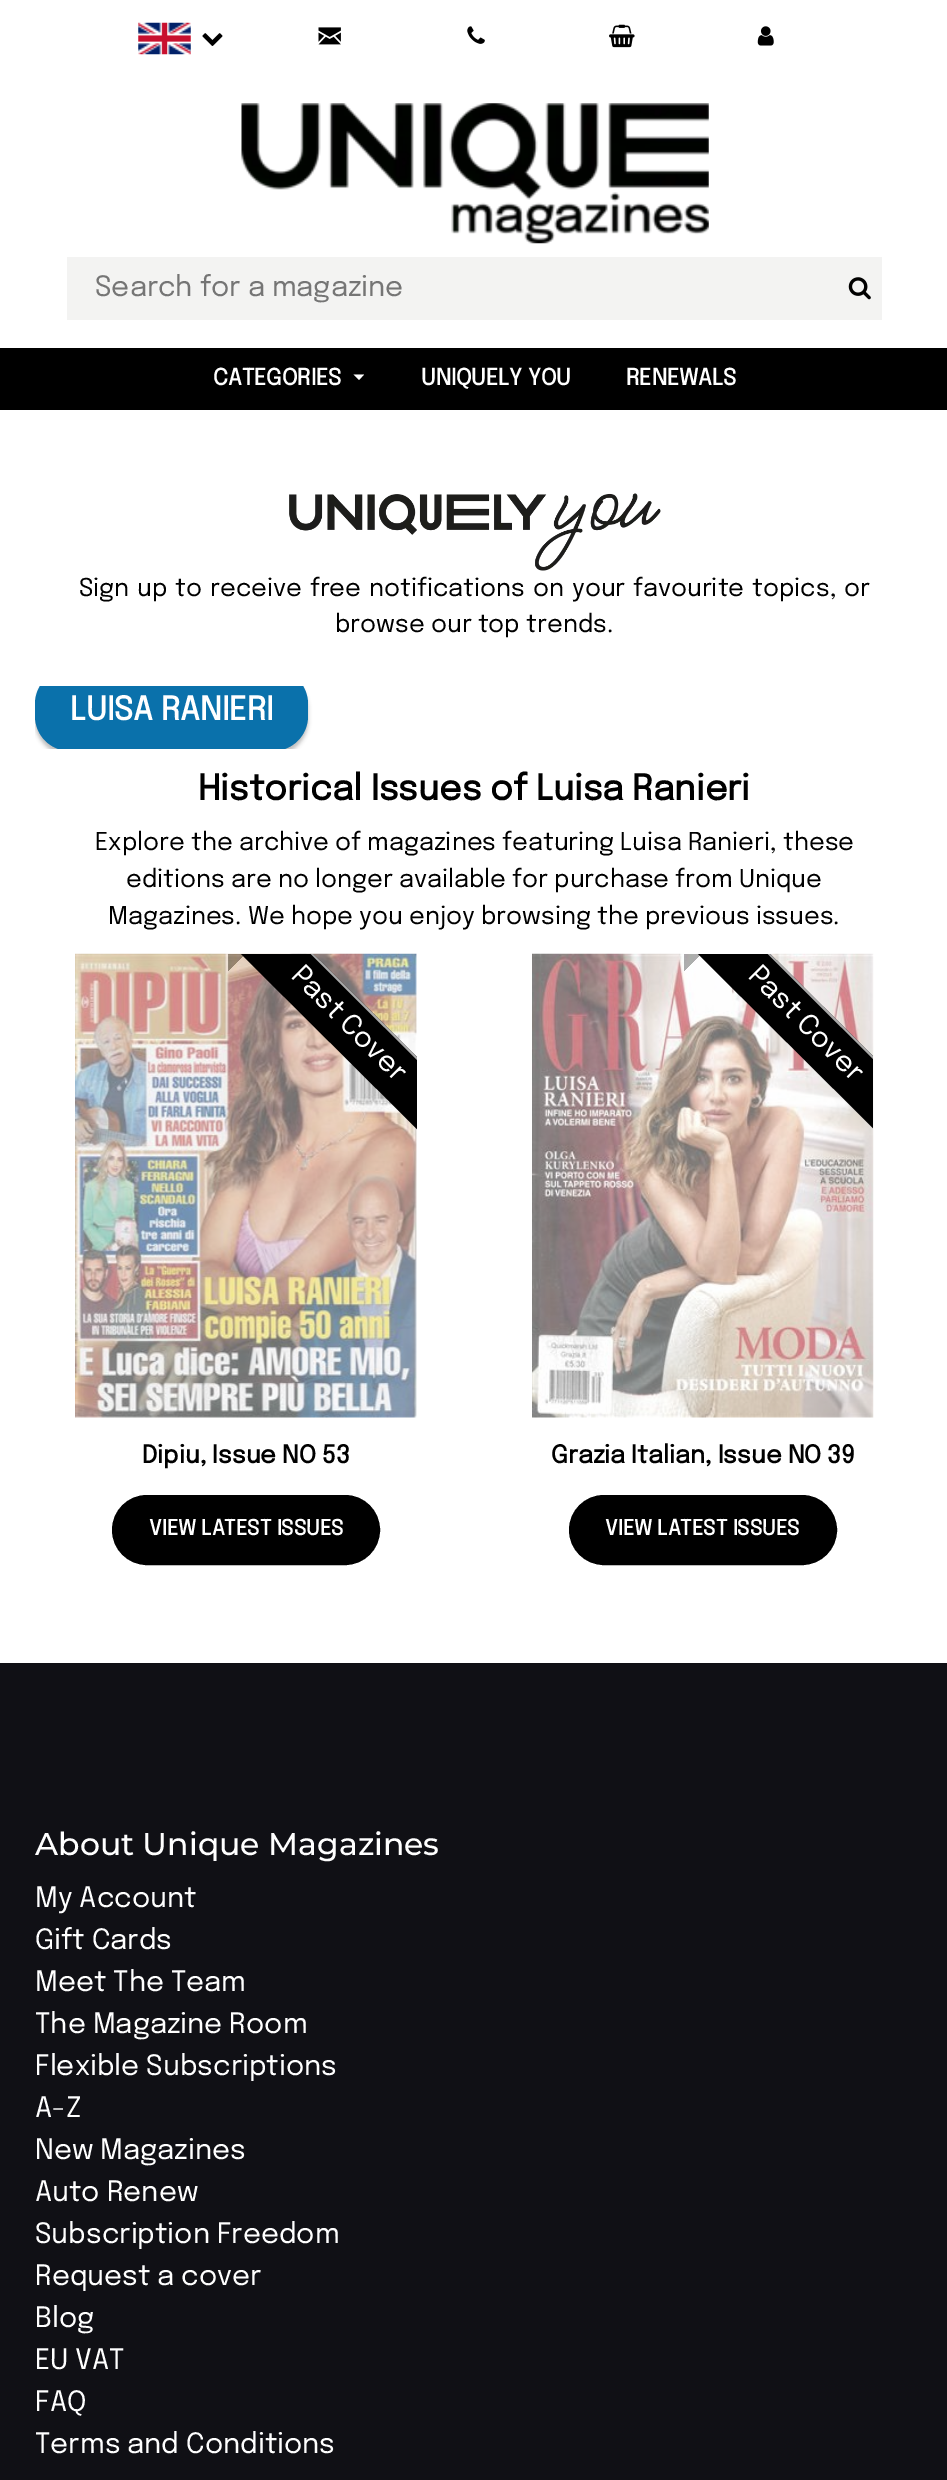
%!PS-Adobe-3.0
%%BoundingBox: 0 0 947 2480
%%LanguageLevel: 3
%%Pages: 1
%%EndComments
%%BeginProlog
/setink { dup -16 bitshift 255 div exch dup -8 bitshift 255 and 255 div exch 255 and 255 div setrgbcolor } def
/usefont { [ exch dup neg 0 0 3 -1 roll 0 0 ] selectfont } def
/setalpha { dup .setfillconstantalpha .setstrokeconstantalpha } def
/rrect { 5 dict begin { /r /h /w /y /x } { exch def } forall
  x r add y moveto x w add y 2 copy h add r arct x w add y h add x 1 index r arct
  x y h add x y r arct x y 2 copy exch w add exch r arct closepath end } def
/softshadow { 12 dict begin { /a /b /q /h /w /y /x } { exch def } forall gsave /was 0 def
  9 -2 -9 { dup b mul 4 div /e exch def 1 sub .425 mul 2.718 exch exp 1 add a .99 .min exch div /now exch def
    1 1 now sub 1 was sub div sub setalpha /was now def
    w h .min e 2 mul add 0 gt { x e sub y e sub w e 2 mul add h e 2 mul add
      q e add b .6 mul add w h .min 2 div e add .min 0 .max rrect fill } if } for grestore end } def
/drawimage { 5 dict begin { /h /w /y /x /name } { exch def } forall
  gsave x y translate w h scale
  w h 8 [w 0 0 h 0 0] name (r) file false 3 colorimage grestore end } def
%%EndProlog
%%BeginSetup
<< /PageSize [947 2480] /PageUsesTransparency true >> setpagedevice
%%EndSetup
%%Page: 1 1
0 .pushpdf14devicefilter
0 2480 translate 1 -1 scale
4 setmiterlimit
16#FFFFFF setink
0 0 947 2480 rectfill
(img1.raw) 138 22 53 33 drawimage
(img2.raw) 202 33 21 13 drawimage
(img3.raw) 318 27 23 18 drawimage
(img4.raw) 467 26 18 18 drawimage
(img5.raw) 609 24 26 24 drawimage
(img6.raw) 757 26 17 20 drawimage
(img7.raw) 241 103 468 141 drawimage
16#F3F3F2 setink
67 257 815 63 rectfill
/Epilogue-Regular 28 usefont
16#757575 setink
95 296 moveto (Search for a magazine) show
(img8.raw) 848 277 23 23 drawimage
16#000000 setink
0 348 947 62 rectfill
/Epilogue-Bold 22.5 usefont
16#FFFFFF setink
213 385 moveto (CATEGORIES) show
353.5 374.5 moveto 364 374.5 lineto 359 380 lineto closepath fill
421 385 moveto (UNIQUELY YOU) show
626 385 moveto (RENEWALS) show
(img9.raw) 289 493 372 78 drawimage
/Epilogue-Regular 24.5 usefont
16#000000 setink
79 596 moveto 1.75 0 32 (Sign up to receive free notifications on your favourite topics, or) widthshow
335 632 moveto (browse our top trends.) show
gsave
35 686 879 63 rectclip
35 674 273 82 35 2 0.25 softshadow
grestore
gsave
35 686 879 63 rectclip
16#0A71AB setink
35 669 273 82 35 rrect fill
grestore
/Epilogue-Bold 32.25 usefont
16#FFFFFF setink
70 720 moveto (LUISA RANIERI) show
/Epilogue-Bold 35 usefont
16#000000 setink
198 800 moveto (Historical Issues of Luisa Ranieri) show
/Epilogue-Regular 24.5 usefont
[
    [(Explore the archive of magazines featuring Luisa Ranieri, these) 95 850]
    [(editions are no longer available for purchase from Unique) 126 887]
    [(Magazines. We hope you enjoy browsing the previous issues.) 108 924]
] { aload pop moveto show } forall
gsave
75 954 342 464 rectclip
gsave 239.5 971 moveto 245 967.5 lineto 250.5 971 lineto 262.5 971 lineto 262.5 936 lineto 228 936 lineto 228 971 lineto closepath clip newpath
<< /ShadingType 2 /ColorSpace /DeviceRGB /Coords [263 971 228 936] /Extend [true true] /Function << /FunctionType 3 /Domain [0 1] /Functions [<< /FunctionType 2 /Domain [0 1] /C0 [1 1 1] /C1 [1 1 1] /N 1 >> << /FunctionType 2 /Domain [0 1] /C0 [0.216 0.216 0.216] /C1 [0.216 0.216 0.216] /N 1 >>] /Bounds [0.5] /Encode [0 1 0 1] >> >> shfill grestore
gsave 428 1055 moveto 422 1058.5 lineto 415.5 1055 lineto 404 1055 lineto 404 1090 lineto 439 1090 lineto 439 1055 lineto closepath clip newpath
<< /ShadingType 2 /ColorSpace /DeviceRGB /Coords [404 1055 439 1090] /Extend [true true] /Function << /FunctionType 3 /Domain [0 1] /Functions [<< /FunctionType 2 /Domain [0 1] /C0 [1 1 1] /C1 [1 1 1] /N 1 >> << /FunctionType 2 /Domain [0 1] /C0 [0.216 0.216 0.216] /C1 [0.216 0.216 0.216] /N 1 >>] /Bounds [0.5] /Encode [0 1 0 1] >> >> shfill grestore
grestore
(img10.raw) 75 953 342 465 drawimage
gsave
75 954 342 464 rectclip
273 914 moveto 459 1099 lineto 423 1135 lineto 237 950 lineto closepath fill
16#AAAAAA setink
273 914 moveto 459 1099 lineto 458 1101 lineto 272 915 lineto closepath fill
grestore
/Epilogue-Regular 28 usefont
16#FFFFFF setink
gsave 290 977 translate 45 rotate 0 0 moveto (Past Cover) show grestore
/Epilogue-Bold 24.5 usefont
16#000000 setink
142 1463 moveto (Dipiu, Issue NO 53) show
113 1496 266 68 34 rrect gsave fill grestore
2 setlinewidth
stroke
/Epilogue-Bold 21 usefont
16#FFFFFF setink
149 1535 moveto (VIEW LATEST ISSUES) show
gsave
532 954 341 464 rectclip
gsave 696.5 971 moveto 702 967.5 lineto 707 971 lineto 719 971 lineto 719 936 lineto 684 936 lineto 684 971 lineto closepath clip newpath
<< /ShadingType 2 /ColorSpace /DeviceRGB /Coords [719 971 684 936] /Extend [true true] /Function << /FunctionType 3 /Domain [0 1] /Functions [<< /FunctionType 2 /Domain [0 1] /C0 [1 1 1] /C1 [1 1 1] /N 1 >> << /FunctionType 2 /Domain [0 1] /C0 [0.216 0.216 0.216] /C1 [0.216 0.216 0.216] /N 1 >>] /Bounds [0.5] /Encode [0 1 0 1] >> >> shfill grestore
grestore
(img11.raw) 532 953 342 465 drawimage
gsave
532 954 341 464 rectclip
16#000000 setink
730 914 moveto 916 1099 lineto 880 1135 lineto 694 950 lineto closepath fill
16#AAAAAA setink
730 914 moveto 916 1099 lineto 915 1101 lineto 729 915 lineto closepath fill
grestore
/Epilogue-Regular 28 usefont
gsave 747 977 translate 45 rotate 0 0 moveto (Past Cover) show grestore
/Epilogue-Bold 24.5 usefont
16#000000 setink
551 1463 moveto (Grazia Italian, Issue NO 39) show
570 1496 266 68 34 rrect gsave fill grestore
stroke
/Epilogue-Bold 21 usefont
16#FFFFFF setink
605 1535 moveto (VIEW LATEST ISSUES) show
16#101015 setink
0 1663 947 817 rectfill
/Montserrat-Medium 31.5 usefont
16#FFFFFF setink
35 1855 moveto (About Unique Magazines) show
/Epilogue-Regular 28 usefont
[
    [(My Account) 35 1907]
    [(Gift Cards) 35 1949]
    [(Meet The Team) 35 1991]
    [(The Magazine Room) 35 2033]
    [(Flexible Subscriptions) 35 2075]
    [(A-Z) 35 2117]
    [(New Magazines) 35 2159]
    [(Auto Renew) 35 2201]
    [(Subscription Freedom) 35 2243]
    [(Request a cover) 35 2285]
    [(Blog) 35 2327]
    [(EU VAT) 35 2369]
    [(FAQ) 35 2411]
    [(Terms and Conditions) 35 2453]
] { aload pop moveto show } forall
.poppdf14devicefilter showpage
%%EOF
